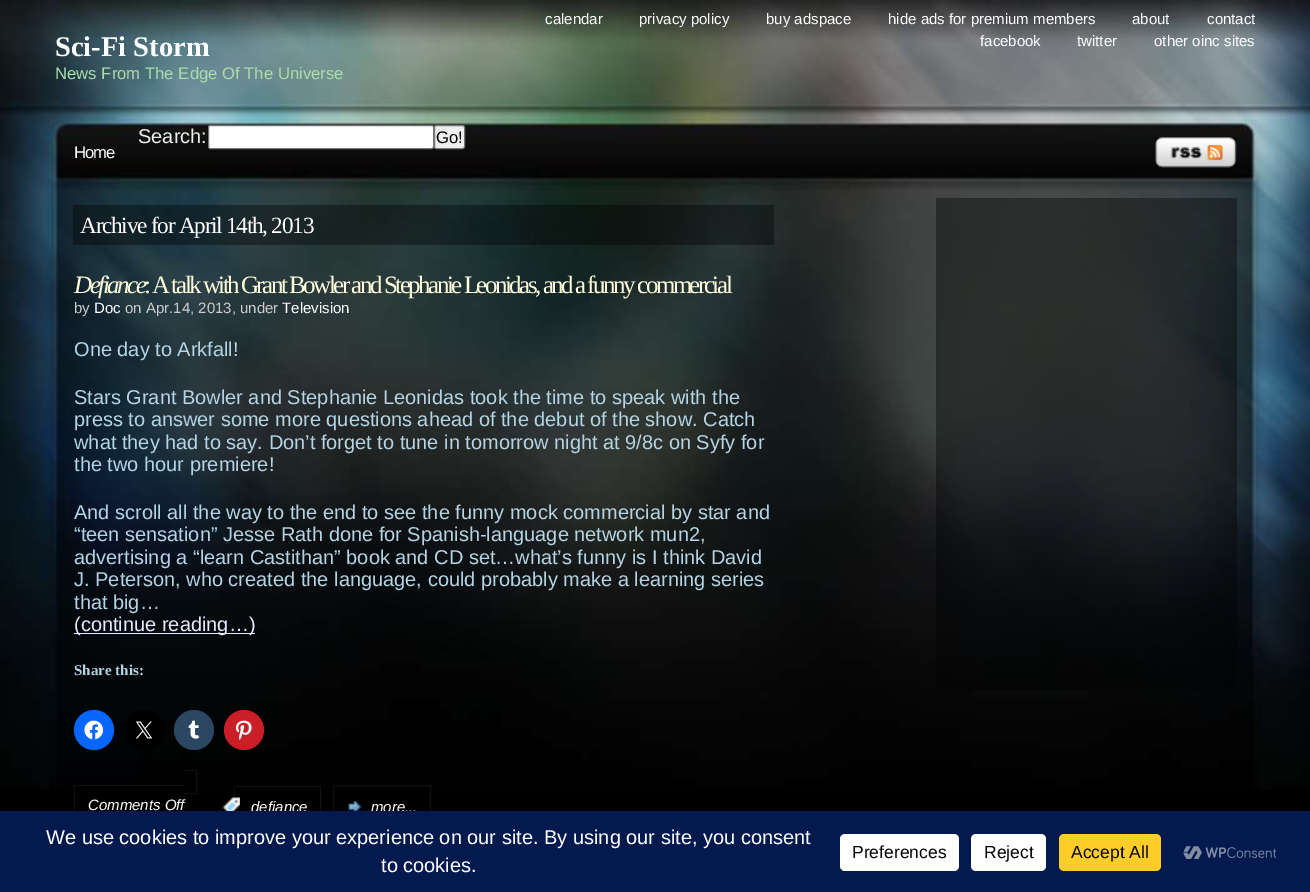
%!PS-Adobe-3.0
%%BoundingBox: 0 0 1310 892
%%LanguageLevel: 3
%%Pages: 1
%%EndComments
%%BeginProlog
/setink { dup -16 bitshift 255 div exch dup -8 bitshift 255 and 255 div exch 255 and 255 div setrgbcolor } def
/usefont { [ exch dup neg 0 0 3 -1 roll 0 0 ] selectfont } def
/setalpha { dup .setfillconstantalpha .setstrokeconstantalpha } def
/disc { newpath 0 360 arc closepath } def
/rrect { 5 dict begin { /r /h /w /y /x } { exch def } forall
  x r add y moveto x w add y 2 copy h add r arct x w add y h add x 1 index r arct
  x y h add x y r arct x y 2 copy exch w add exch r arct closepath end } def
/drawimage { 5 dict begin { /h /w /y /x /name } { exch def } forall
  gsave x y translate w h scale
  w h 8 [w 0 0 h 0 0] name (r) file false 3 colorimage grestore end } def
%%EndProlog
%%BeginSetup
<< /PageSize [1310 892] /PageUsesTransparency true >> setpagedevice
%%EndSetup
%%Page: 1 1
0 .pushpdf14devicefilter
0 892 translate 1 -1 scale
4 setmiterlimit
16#000000 setink
0 0 1310 892 rectfill
(img1.raw) 0 0 1310 789 drawimage
/LiberationSans-Regular 15 usefont
16#FFFFFF setink
[
    [(calendar) 545 24]
    [(privacy policy) 639 24]
    [(buy adspace) 766 24]
    [(hide ads for premium members) 888 24]
    [(about) 1132 24]
    [(contact) 1207 24]
    [(facebook) 980 46]
    [(twitter) 1077 46]
    [(other oinc sites) 1154 46]
] { aload pop moveto show } forall
/LiberationSerif-Bold 28.5 usefont
55 56 moveto (Sci-Fi Storm) show
/LiberationSans-Regular 16.7 usefont
16#AADDAA setink
55 79 moveto (News From The Edge Of The Universe) show
/LiberationSans-Regular 20 usefont
16#EEEEEE setink
138 143 moveto (Search:) show
16#FFFFFF setink
208.5 125.5 225 23 2 rrect gsave fill grestore
16#767676 setink
stroke
16#EFEFEF setink
434.5 125.5 30 23 2 rrect gsave fill grestore
16#767676 setink
stroke
/LiberationSans-Regular 16.7 usefont
16#000000 setink
436 143 moveto (Go!) show
16#FFFFFF setink
74 158 moveto -1.25 0 (Home) ashow
(img2.raw) 1155 137 82 31 drawimage
0.38 setalpha
16#000000 setink
73 205 701 40 rectfill
/LiberationSerif-Regular 23.25 usefont
1 setalpha
16#FFFFFF setink
80 233 moveto -1.25 0 (Archive for April 14th, 2013) ashow
/LiberationSerif-Italic 25 usefont
16#FFFFDD setink
74 293 moveto -2.5 0 (Defiance) ashow
/LiberationSerif-Regular 25 usefont
144 293 moveto -2.5 0 (: A talk with Grant Bowler and Stephanie Leonidas, and a funny commercial) ashow
/LiberationSans-Regular 15 usefont
16#CDCDCD setink
74 313 moveto (by) show
16#FFFFFF setink
94 313 moveto (Doc) show
16#CDCDCD setink
125 313 moveto (on Apr.14, 2013, under) show
16#FFFFFF setink
282 313 moveto (Television) show
/LiberationSans-Regular 20 usefont
16#B4D4E4 setink
[
    [(One day to Arkfall!) 74 356]
    [(Stars Grant Bowler and Stephanie Leonidas took the time to speak with the) 74 404]
    [(press to answer some more questions ahead of the debut of the show. Catch) 74 426]
    [(what they had to say. Don’t forget to tune in tomorrow night at 9/8c on Syfy for) 74 449]
    [(the two hour premiere!) 74 471]
    [(And scroll all the way to the end to see the funny mock commercial by star and) 74 519]
    [(“teen sensation” Jesse Rath done for Spanish-language network mun2,) 74 541]
    [(advertising a “learn Castithan” book and CD set…what’s funny is I think David) 74 564]
    [(J. Peterson, who created the language, could probably make a learning series) 74 586]
    [(that big…) 74 609]
] { aload pop moveto show } forall
16#E9E9FF setink
74 633 181 1 rectfill
74 631 moveto (\(continue reading…\)) show
/LiberationSerif-Bold 15 usefont
16#B4D4E4 setink
74 675 moveto (Share this:) show
16#0866FF setink
94 730 20 disc fill
(img3.raw) 84 720 20 20 drawimage
16#000000 setink
144 730 20 disc fill
(img4.raw) 135 721 18 18 drawimage
16#2C4762 setink
194 730 20 disc fill
(img5.raw) 188 720 11 19 drawimage
16#CA1F27 setink
244 730 20 disc fill
(img6.raw) 235 720 17 20 drawimage
/LiberationSans-Italic 15 usefont
16#FFFFFF setink
88 810 moveto (Comments Off) show
[
    [74 785 110 1 16#111111]
    [74 785 1 26 16#111111]
    [183 770 15 1 16#111111]
    [196 770 1 24 16#111111]
    [183 793 15 1 16#111111]
    [234 786 87 1 16#111111]
    [234 786 1 25 16#111111]
] { aload pop setink rectfill } forall
(img7.raw) 222 797 18 14 drawimage
16#FFFFFF setink
251 812 moveto (defiance) show
16#111111 setink
320 786 1 25 rectfill
333.5 785.5 97 39 rectstroke
(img8.raw) 348 801 14 10 drawimage
16#FFFFFF setink
371 812 moveto (more...) show
0.38 setalpha
16#000000 setink
936 198 301 492 rectfill
1 setalpha
16#04194E setink
0 811 1310 81 rectfill
/LiberationSans-Regular 20 usefont
16#FFFFFF setink
46 844 moveto (We use cookies to improve your experience on our site. By using our site, you consent) show
381 872 moveto (to cookies.) show
840 834 119 37 5 rrect fill
/LiberationSans-Regular 17.5 usefont
16#000000 setink
852 858 moveto (Preferences) show
16#FFFFFF setink
971 834 75 37 5 rrect fill
16#000000 setink
984 858 moveto (Reject) show
16#FFCD2A setink
1059 834 102 37 5 rrect fill
16#000000 setink
1071 858 moveto (Accept All) show
(img9.raw) 1183 846 94 13 drawimage
.poppdf14devicefilter showpage
%%EOF
